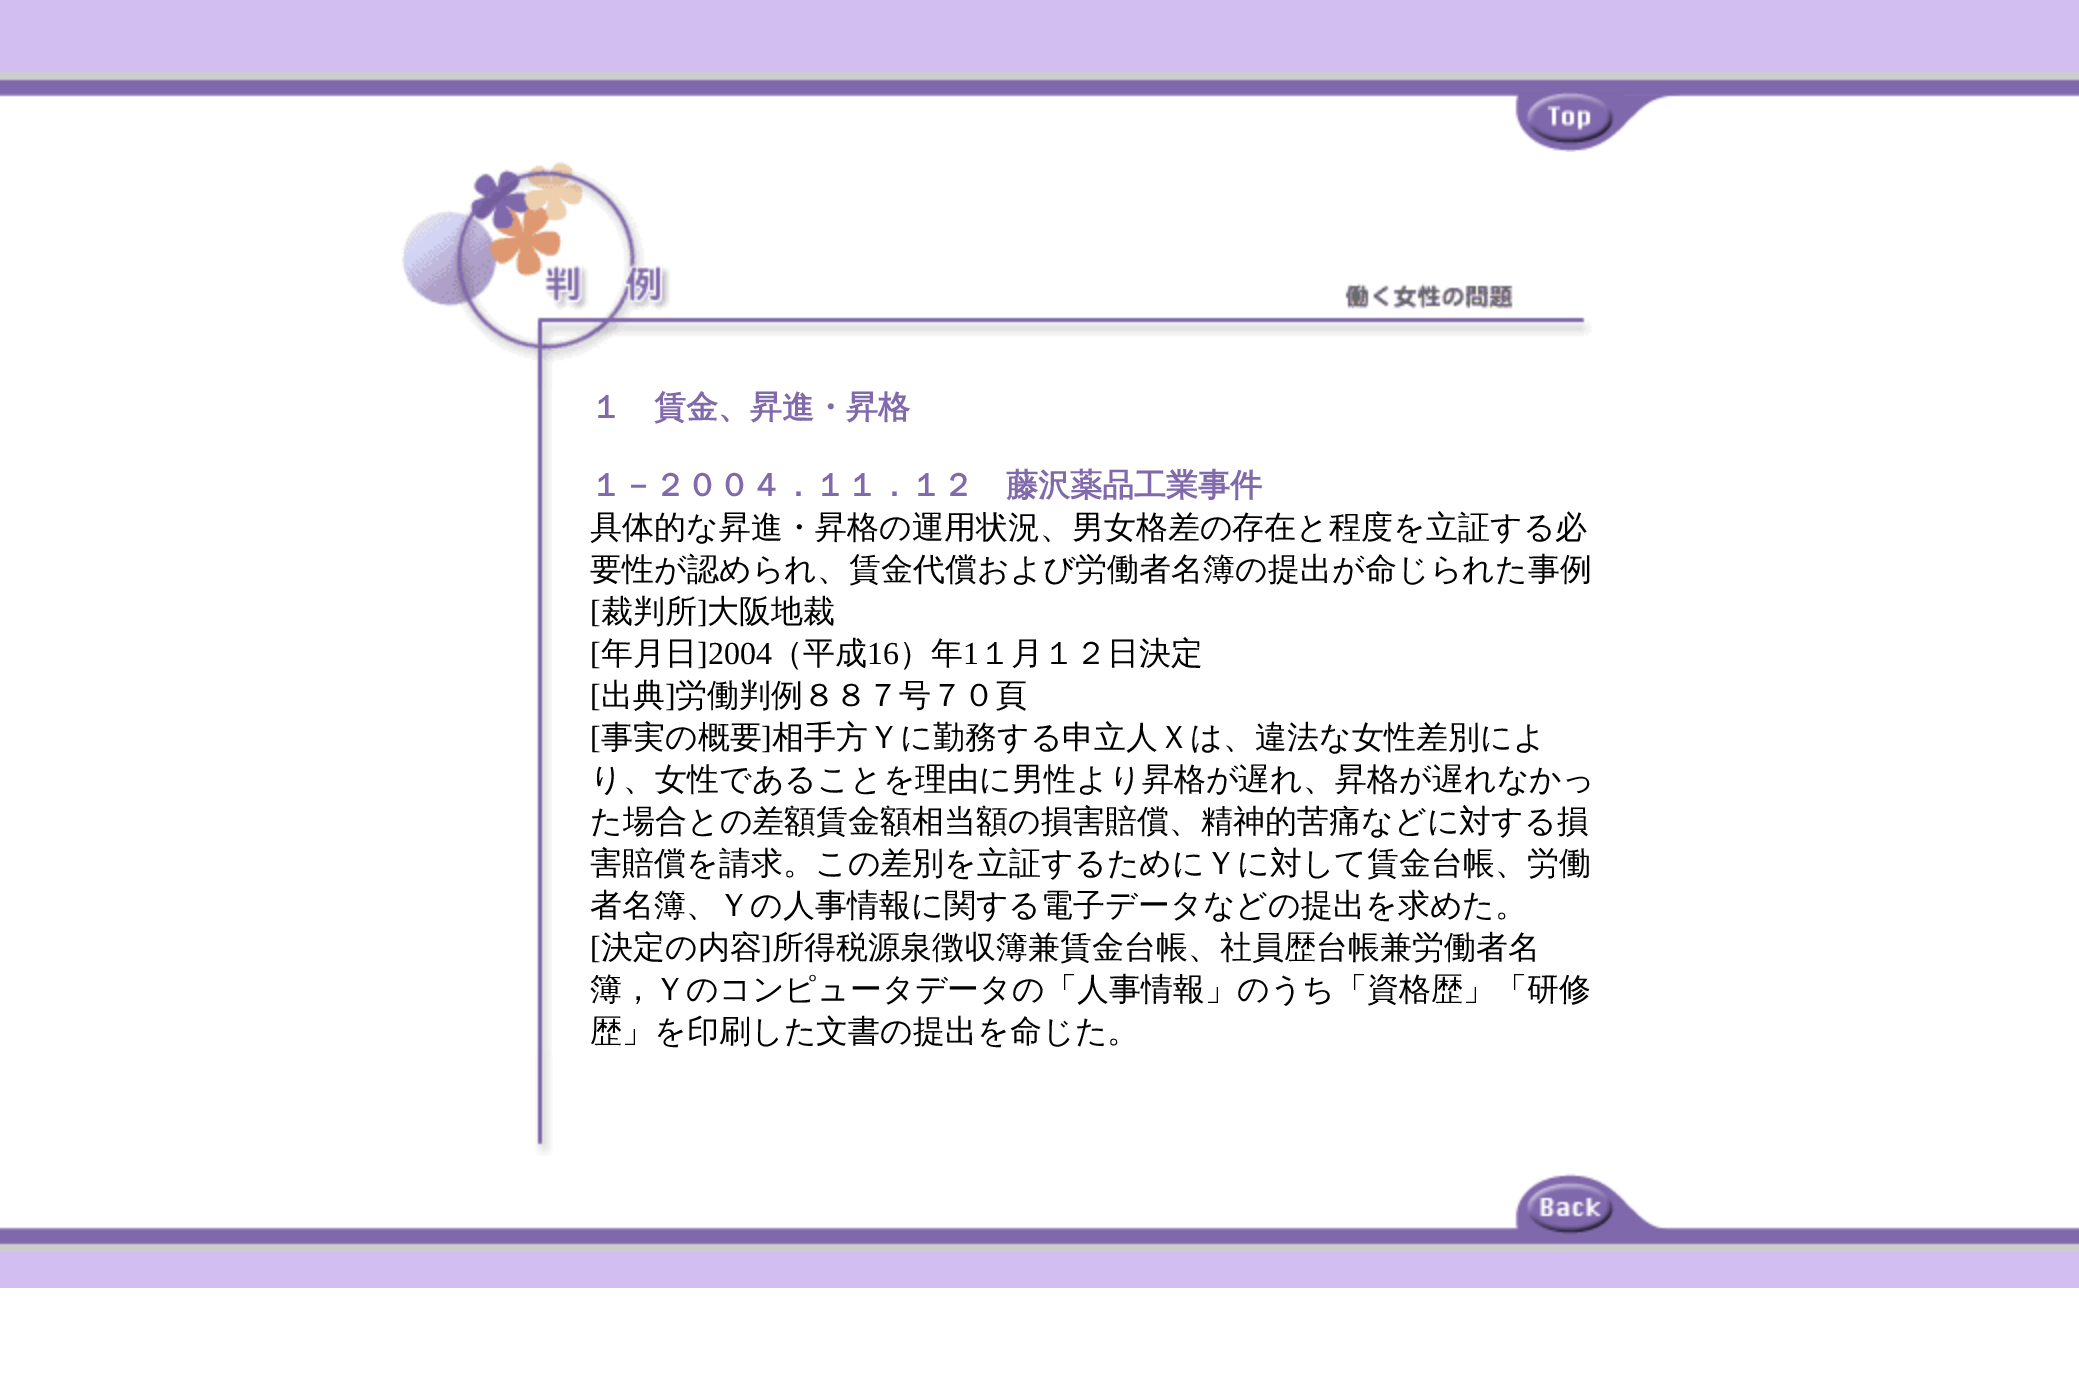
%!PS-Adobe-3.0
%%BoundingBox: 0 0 2079 1386
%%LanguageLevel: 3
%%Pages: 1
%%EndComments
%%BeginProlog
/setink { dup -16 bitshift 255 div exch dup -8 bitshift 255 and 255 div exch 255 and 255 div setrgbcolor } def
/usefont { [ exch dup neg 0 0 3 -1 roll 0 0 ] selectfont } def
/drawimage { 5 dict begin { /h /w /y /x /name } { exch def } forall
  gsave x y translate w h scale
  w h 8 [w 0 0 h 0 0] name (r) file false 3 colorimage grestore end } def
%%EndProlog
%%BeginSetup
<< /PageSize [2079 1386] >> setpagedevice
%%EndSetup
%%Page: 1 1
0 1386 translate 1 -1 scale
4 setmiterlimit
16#FFFFFF setink
0 0 2079 1386 rectfill
16#D2BEF1 setink
0 0 2079 72 rectfill
(img1.raw) 0 72 2079 25 drawimage
(img2.raw) 1515 92 165 60 drawimage
(img3.raw) 401 162 1191 226 drawimage
(img4.raw) 536 388 16 666 drawimage
/WenQuanYiZenHei-Bold 32 usefont
16#816AAC setink
590 418 moveto (１　賃金、昇進・昇格) show
590 496 moveto (１－２００４．１１．１２　藤沢薬品工業事件) show
/WenQuanYiZenHei-Medium 32 usefont
16#000000 setink
590 538 moveto (具体的な昇進・昇格の運用状況、男女格差の存在と程度を立証する必) show
590 580 moveto (要性が認められ、賃金代償および労働者名簿の提出が命じられた事例) show
/LiberationSerif-Regular 32 usefont
590 622 moveto ([) show
/WenQuanYiZenHei-Medium 32 usefont
601 622 moveto (裁判所) show
/LiberationSerif-Regular 32 usefont
697 622 moveto (]) show
/WenQuanYiZenHei-Medium 32 usefont
707 622 moveto (大阪地裁) show
/LiberationSerif-Regular 32 usefont
590 664 moveto ([) show
/WenQuanYiZenHei-Medium 32 usefont
601 664 moveto (年月日) show
/LiberationSerif-Regular 32 usefont
697 664 moveto (]2004) show
/WenQuanYiZenHei-Medium 32 usefont
771 664 moveto (（平成) show
/LiberationSerif-Regular 32 usefont
867 664 moveto (16) show
/WenQuanYiZenHei-Medium 32 usefont
899 664 moveto (）年) show
/LiberationSerif-Regular 32 usefont
963 664 moveto (1) show
/WenQuanYiZenHei-Medium 32 usefont
979 664 moveto (１月１２日決定) show
/LiberationSerif-Regular 32 usefont
590 706 moveto ([) show
/WenQuanYiZenHei-Medium 32 usefont
601 706 moveto (出典) show
/LiberationSerif-Regular 32 usefont
665 706 moveto (]) show
/WenQuanYiZenHei-Medium 32 usefont
675 706 moveto (労働判例８８７号７０頁) show
/LiberationSerif-Regular 32 usefont
590 748 moveto ([) show
/WenQuanYiZenHei-Medium 32 usefont
601 748 moveto (事実の概要) show
/LiberationSerif-Regular 32 usefont
761 748 moveto (]) show
/WenQuanYiZenHei-Medium 32 usefont
[
    [(相手方Ｙに勤務する申立人Ｘは、違法な女性差別によ) 772 748]
    [(り、女性であることを理由に男性より昇格が遅れ、昇格が遅れなかっ) 590 790]
    [(た場合との差額賃金額相当額の損害賠償、精神的苦痛などに対する損) 590 832]
    [(害賠償を請求。この差別を立証するためにＹに対して賃金台帳、労働) 590 874]
    [(者名簿、Ｙの人事情報に関する電子データなどの提出を求めた。) 590 916]
] { aload pop moveto show } forall
/LiberationSerif-Regular 32 usefont
590 958 moveto ([) show
/WenQuanYiZenHei-Medium 32 usefont
601 958 moveto (決定の内容) show
/LiberationSerif-Regular 32 usefont
761 958 moveto (]) show
/WenQuanYiZenHei-Medium 32 usefont
[
    [(所得税源泉徴収簿兼賃金台帳、社員歴台帳兼労働者名) 772 958]
    [(簿，Ｙのコンピュータデータの「人事情報」のうち「資格歴」「研修) 590 1000]
    [(歴」を印刷した文書の提出を命じた。) 590 1042]
] { aload pop moveto show } forall
(img5.raw) 535 1054 18 102 drawimage
(img6.raw) 0 1227 2079 25 drawimage
(img7.raw) 1515 1173 152 62 drawimage
16#D2BEF1 setink
0 1252 2079 36 rectfill
showpage
%%EOF
